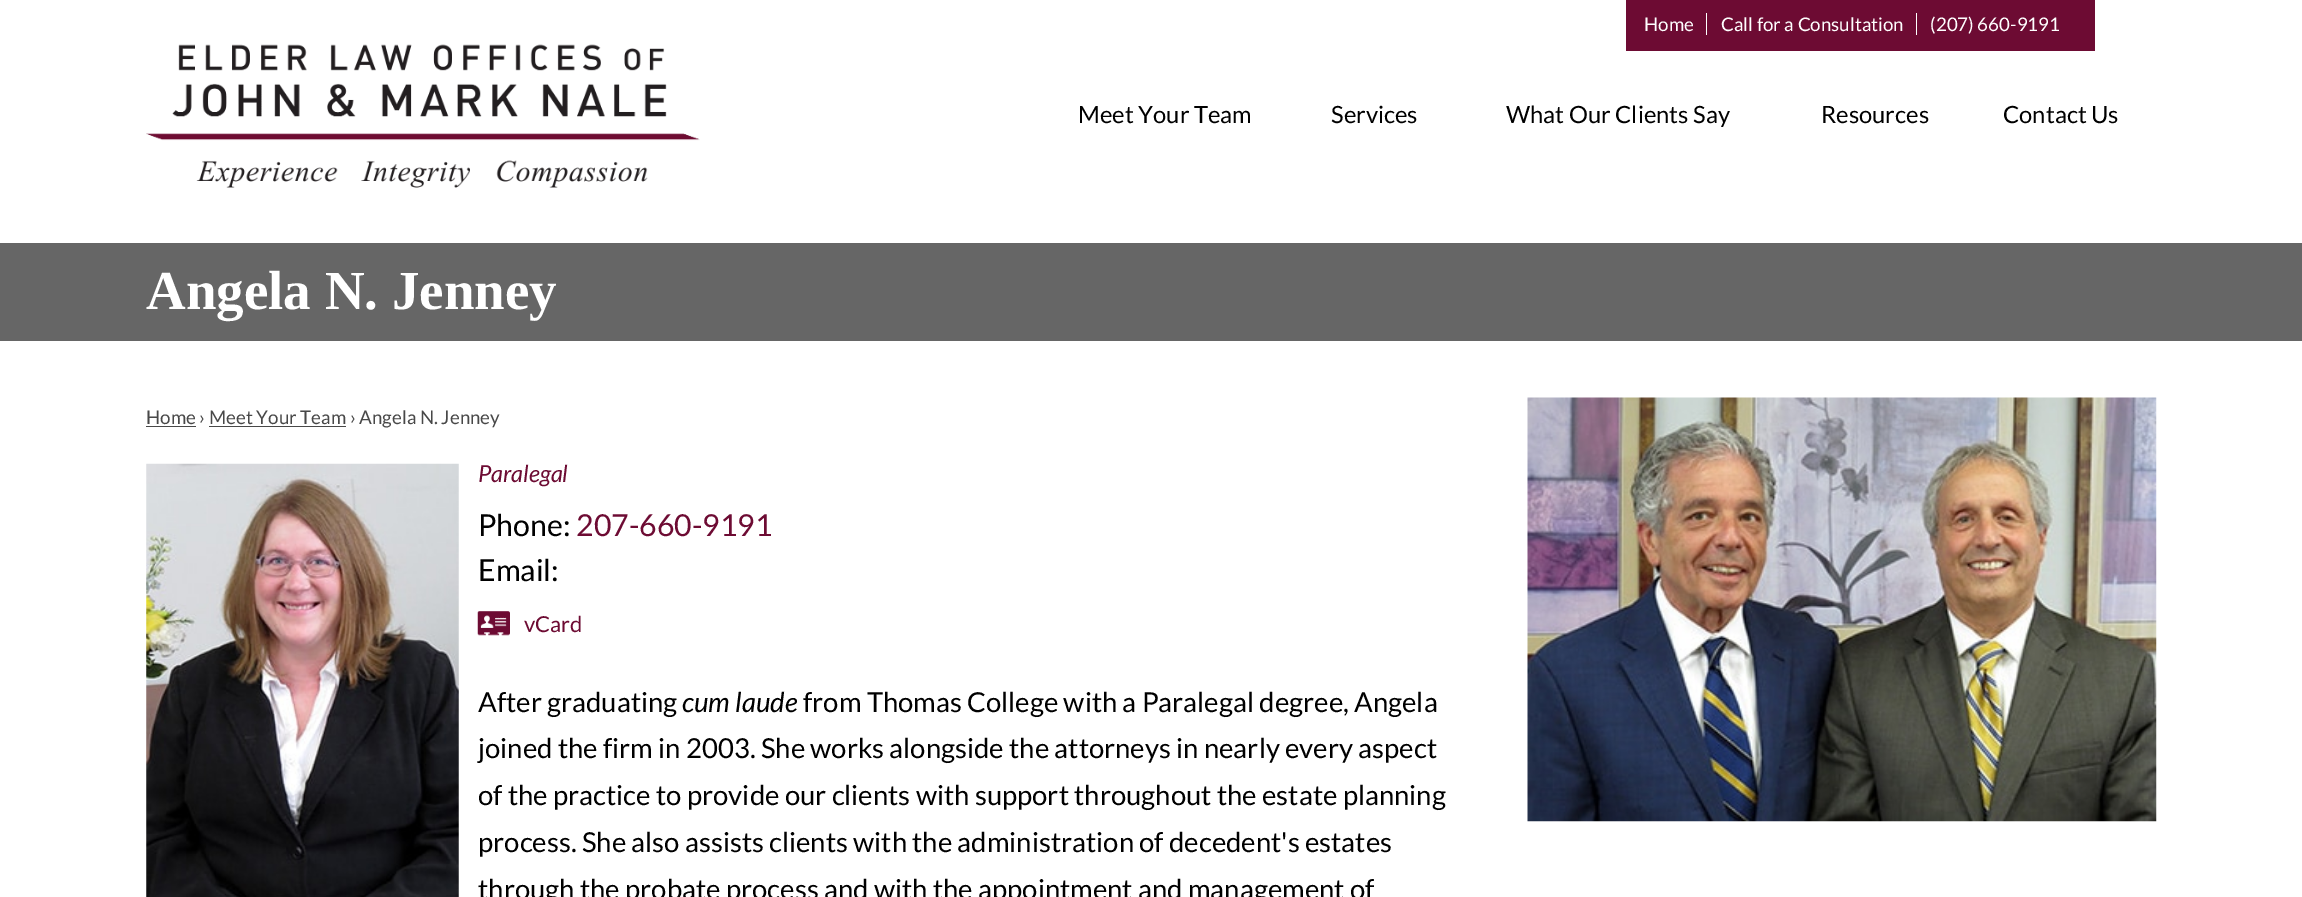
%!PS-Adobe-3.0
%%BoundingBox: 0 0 2302 897
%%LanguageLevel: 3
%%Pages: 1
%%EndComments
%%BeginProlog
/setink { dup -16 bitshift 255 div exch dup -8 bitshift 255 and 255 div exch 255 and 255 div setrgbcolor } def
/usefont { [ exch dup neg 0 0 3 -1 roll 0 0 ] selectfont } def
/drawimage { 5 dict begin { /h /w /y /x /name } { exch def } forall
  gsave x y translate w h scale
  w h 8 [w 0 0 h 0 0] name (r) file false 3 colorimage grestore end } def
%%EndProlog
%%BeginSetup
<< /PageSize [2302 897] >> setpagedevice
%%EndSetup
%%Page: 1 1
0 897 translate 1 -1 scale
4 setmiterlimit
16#FFFFFF setink
0 0 2302 897 rectfill
(img1.raw) 146 44 554 144 drawimage
16#6D0B33 setink
1626 0 469 51 rectfill
/Lato-Regular 18.75 usefont
16#FFFFFF setink
1644 31 moveto (Home) show
1706 13 1 22 rectfill
1721 31 moveto (Call for a Consultation) show
1916 13 1 22 rectfill
1930 31 moveto (\(207\) 660-9191) show
/Lato-Regular 23.75 usefont
16#000000 setink
[
    [(Meet Your Team) 1078 123]
    [(Services) 1331 123]
    [(What Our Clients Say) 1506 123]
    [(Resources) 1821 123]
    [(Contact Us) 2003 123]
] { aload pop moveto show } forall
16#666666 setink
0 243 2302 98 rectfill
/LiberationSerif-Bold 55 usefont
16#FFFFFF setink
146 309 moveto (Angela N. Jenney) show
16#484848 setink
146 426 50 1 rectfill
/Lato-Regular 18.75 usefont
146 424 moveto (Home › Meet Your Team › Angela N. Jenney) show
209 426 137 1 rectfill
(img2.raw) 146 463 313 434 drawimage
/Lato-Italic 23.5 usefont
16#6D0B33 setink
478 482 moveto (Paralegal) show
/Lato-Regular 30.25 usefont
16#000000 setink
478 536 moveto (Phone:) show
16#6D0B33 setink
576 536 moveto (207-660-9191) show
16#000000 setink
478 581 moveto (Email:) show
(img3.raw) 477 611 33 25 drawimage
/Lato-Regular 22 usefont
16#6D0B33 setink
524 632 moveto (vCard) show
/Lato-Regular 27.5 usefont
16#000000 setink
478 712 moveto (After graduating) show
/Lato-Italic 27.5 usefont
682 712 moveto (cum laude) show
/Lato-Regular 27.5 usefont
[
    [(from Thomas College with a Paralegal degree, Angela) 803 712]
    [(joined the firm in 2003. She works alongside the attorneys in nearly every aspect) 478 758]
    [(of the practice to provide our clients with support throughout the estate planning) 478 805]
    [(process. She also assists clients with the administration of decedent's estates) 478 852]
    [(through the probate process and with the appointment and management of) 478 899]
] { aload pop moveto show } forall
(img4.raw) 1527 397 630 425 drawimage
showpage
%%EOF
